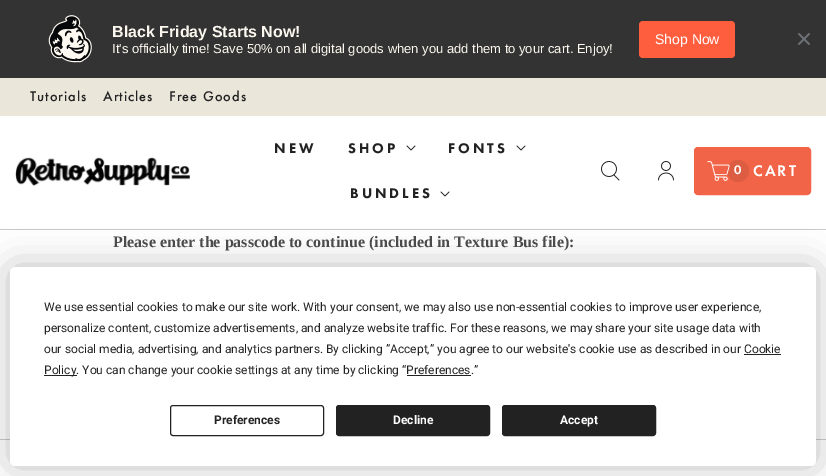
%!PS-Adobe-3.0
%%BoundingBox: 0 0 826 476
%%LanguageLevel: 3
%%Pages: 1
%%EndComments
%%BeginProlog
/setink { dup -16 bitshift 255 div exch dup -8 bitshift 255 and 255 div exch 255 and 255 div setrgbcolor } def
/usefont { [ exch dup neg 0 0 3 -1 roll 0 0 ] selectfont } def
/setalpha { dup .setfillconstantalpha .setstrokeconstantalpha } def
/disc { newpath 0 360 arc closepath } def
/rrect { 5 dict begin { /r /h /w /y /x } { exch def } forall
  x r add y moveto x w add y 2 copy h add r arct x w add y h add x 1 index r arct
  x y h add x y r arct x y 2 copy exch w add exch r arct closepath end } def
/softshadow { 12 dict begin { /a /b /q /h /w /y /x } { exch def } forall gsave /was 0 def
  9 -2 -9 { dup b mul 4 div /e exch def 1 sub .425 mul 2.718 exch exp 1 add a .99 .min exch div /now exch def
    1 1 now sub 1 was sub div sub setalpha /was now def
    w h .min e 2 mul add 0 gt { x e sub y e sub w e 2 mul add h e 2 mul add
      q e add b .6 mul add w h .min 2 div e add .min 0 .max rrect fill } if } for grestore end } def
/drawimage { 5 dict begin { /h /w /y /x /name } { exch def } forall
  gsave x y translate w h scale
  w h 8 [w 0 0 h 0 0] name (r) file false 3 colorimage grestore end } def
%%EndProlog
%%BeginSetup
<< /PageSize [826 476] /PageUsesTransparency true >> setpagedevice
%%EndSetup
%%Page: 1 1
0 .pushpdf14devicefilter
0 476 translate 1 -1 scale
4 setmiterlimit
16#FFFFFF setink
0 0 826 476 rectfill
16#333333 setink
0 0 826 78 rectfill
(img1.raw) 48 15 44 48 drawimage
/LiberationSans-Bold 16 usefont
16#FCF8EF setink
112 37 moveto (Black Friday Starts Now!) show
/LiberationSans-Regular 13 usefont
112 53 moveto (It's officially time! Save 50% on all digital goods when you add them to your cart. Enjoy!) show
16#FF5E3E setink
639 21 96 37 4 rrect fill
/LiberationSans-Regular 14 usefont
16#FFFFFF setink
655 44 moveto (Shop Now) show
(img2.raw) 798 33 12 12 drawimage
16#CBCAC9 setink
0 229 826 1 rectfill
16#EAE6DA setink
0 78 826 38 rectfill
/FuturaPT-Medium 14.5 usefont
16#222222 setink
30 101 moveto 1 0 (Tutorials) ashow
103 101 moveto 1 0 (Articles) ashow
169 101 moveto 1 0 (Free Goods) ashow
(img3.raw) 15 157 175 29 drawimage
/FuturaPT-Black 14.5 usefont
274 153 moveto 3 0 (NEW) ashow
348 153 moveto 3 0 (SHOP) ashow
(img4.raw) 406 145 10 6 drawimage
448 153 moveto 3 0 (FONTS) ashow
(img4.raw) 516 145 10 6 drawimage
350 198 moveto 3 0 (BUNDLES) ashow
(img4.raw) 440 191 10 6 drawimage
(img5.raw) 601 161 19 20 drawimage
(img6.raw) 658 161 16 20 drawimage
16#F26447 setink
694.5 147.5 116 47 3.5 rrect gsave fill grestore
stroke
16#DD5D43 setink
738 171 11 disc fill
(img7.raw) 707 161 23 20 drawimage
/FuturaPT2-Medium 13 usefont
16#FFFFFF setink
734 174 moveto 2 0 (0) ashow
/FuturaPT2-Medium 16 usefont
753 176 moveto 2 0 (CART) ashow
/LiberationSerif-Bold 16 usefont
16#4D4D4D setink
113 247 moveto (Please enter the passcode to continue \(included in Texture Bus file\):) show
16#CBCAC9 setink
0 439 826 1 rectfill
16#000000 setink
10 267 806 199 5 17.5 0.25 softshadow
16#FFFFFF setink
10 267 806 199 5 rrect fill
/Roboto-Regular 12 usefont
16#222222 setink
[
    [(We use essential cookies to make our site work. With your consent, we may also use non-essential cookies to improve user experience,) 44 311]
    [(personalize content, customize advertisements, and analyze website traffic. For these reasons, we may share your site usage data with) 44 332]
    [(our social media, advertising, and analytics partners. By clicking ”Accept,” you agree to our website's cookie use as described in our Cookie) 44 353]
] { aload pop moveto show } forall
44 375 33 1 rectfill
44 374 moveto (Policy. You can change your cookie settings at any time by clicking “Preferences.”) show
744 354 37 1 rectfill
407 375 64 1 rectfill
170.5 405.5 153 30 2.5 rrect stroke
/Roboto-Bold 12 usefont
214 424 moveto (Preferences) show
336.5 405.5 153 30 2.5 rrect gsave fill grestore
stroke
16#FFFFFF setink
393 424 moveto (Decline) show
16#222222 setink
502.5 405.5 153 30 2.5 rrect gsave fill grestore
stroke
16#FFFFFF setink
560 424 moveto (Accept) show
.poppdf14devicefilter showpage
%%EOF
